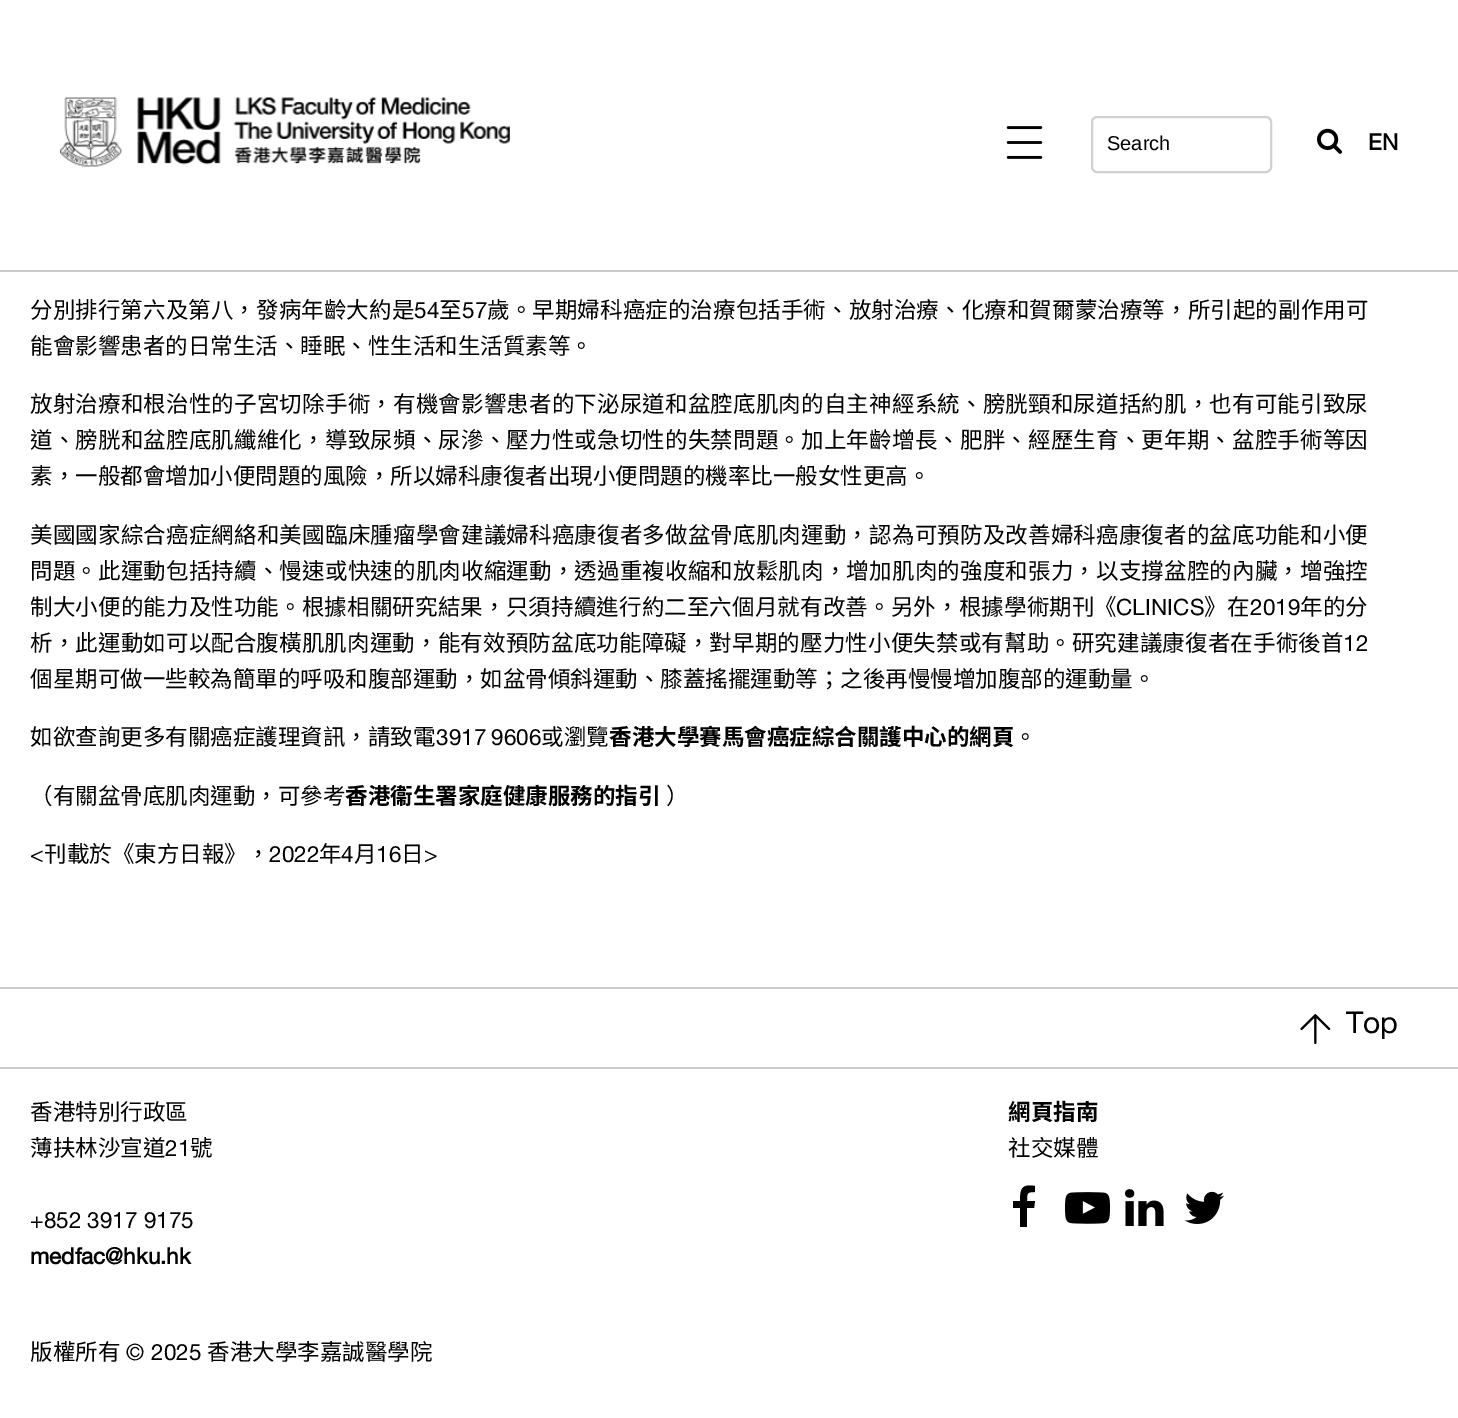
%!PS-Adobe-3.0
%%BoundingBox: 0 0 1458 1418
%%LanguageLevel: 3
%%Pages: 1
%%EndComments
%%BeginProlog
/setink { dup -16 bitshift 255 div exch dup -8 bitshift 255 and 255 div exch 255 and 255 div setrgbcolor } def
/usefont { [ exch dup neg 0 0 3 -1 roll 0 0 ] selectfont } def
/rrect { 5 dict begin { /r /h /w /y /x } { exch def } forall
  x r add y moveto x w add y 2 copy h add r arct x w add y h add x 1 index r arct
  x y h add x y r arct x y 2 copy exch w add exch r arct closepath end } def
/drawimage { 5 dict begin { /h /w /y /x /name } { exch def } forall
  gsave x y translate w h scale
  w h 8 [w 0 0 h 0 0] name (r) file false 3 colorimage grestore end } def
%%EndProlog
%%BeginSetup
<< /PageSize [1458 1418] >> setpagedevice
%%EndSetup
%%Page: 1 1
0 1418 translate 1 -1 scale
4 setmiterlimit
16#FFFFFF setink
0 0 1458 1418 rectfill
16#CBCBCB setink
0 270 1458 2 rectfill
(img1.raw) 60 97 450 70 drawimage
(img2.raw) 1006 126 37 33 drawimage
16#D1D1D1 setink
2 setlinewidth
1092 117 179 55 5 rrect stroke
/LiberationSans-Regular 20 usefont
16#000000 setink
1107 150 moveto (Search) show
(img3.raw) 1317 128 25 26 drawimage
/HelveticaNeue-Bold 22.5 usefont
1368 150 moveto (EN) show
/NotoSansHK-Regular 22.5 usefont
30 318 moveto 0.1 0 (分別排行第六及第八，發病年齡大約是) ashow
/HelveticaNeue-Regular 22.5 usefont
414 318 moveto 0.1 0 (54) ashow
/NotoSansHK-Regular 22.5 usefont
439 318 moveto 0.1 0 (至) ashow
/HelveticaNeue-Regular 22.5 usefont
462 318 moveto 0.1 0 (57) ashow
/NotoSansHK-Regular 22.5 usefont
487 318 moveto 0.1 0 (歲。早期婦科癌症的治療包括手術、放射治療、化療和賀爾蒙治療等，所引起的副作用可) ashow
30 354 moveto (能會影響患者的日常生活、睡眠、性生活和生活質素等。) show
30 412 moveto 0.18 0 (放射治療和根治性的子宮切除手術，有機會影響患者的下泌尿道和盆腔底肌肉的自主神經系統、膀胱頸和尿道括約肌，也有可能引致尿) ashow
30 448 moveto 0.18 0 (道、膀胱和盆腔底肌纖維化，導致尿頻、尿滲、壓力性或急切性的失禁問題。加上年齡增長、肥胖、經歷生育、更年期、盆腔手術等因) ashow
30 484 moveto (素，一般都會增加小便問題的風險，所以婦科康復者出現小便問題的機率比一般女性更高。) show
30 543 moveto 0.18 0 (美國國家綜合癌症網絡和美國臨床腫瘤學會建議婦科癌康復者多做盆骨底肌肉運動，認為可預防及改善婦科癌康復者的盆底功能和小便) ashow
30 579 moveto 0.18 0 (問題。此運動包括持續、慢速或快速的肌肉收縮運動，透過重複收縮和放鬆肌肉，增加肌肉的強度和張力，以支撐盆腔的內臟，增強控) ashow
30 615 moveto 0.15 0 (制大小便的能力及性功能。根據相關研究結果，只須持續進行約二至六個月就有改善。另外，根據學術期刊《) ashow
/HelveticaNeue-Regular 22.5 usefont
1116 615 moveto 0.15 0 (CLINICS) ashow
/NotoSansHK-Regular 22.5 usefont
1204 615 moveto 0.15 0 (》在) ashow
/HelveticaNeue-Regular 22.5 usefont
1250 615 moveto 0.15 0 (2019) ashow
/NotoSansHK-Regular 22.5 usefont
1300 615 moveto 0.15 0 (年的分) ashow
30 651 moveto 0.15 0 (析，此運動如可以配合腹橫肌肌肉運動，能有效預防盆底功能障礙，對早期的壓力性小便失禁或有幫助。研究建議康復者在手術後首) ashow
/HelveticaNeue-Regular 22.5 usefont
1343 651 moveto 0.15 0 (12) ashow
/NotoSansHK-Regular 22.5 usefont
30 687 moveto (個星期可做一些較為簡單的呼吸和腹部運動，如盆骨傾斜運動、膝蓋搖擺運動等；之後再慢慢增加腹部的運動量。) show
30 745 moveto (如欲查詢更多有關癌症護理資訊，請致電) show
/HelveticaNeue-Regular 22.5 usefont
436 745 moveto -1 0 32 (3917 9606) widthshow
/NotoSansHK-Regular 22.5 usefont
541 745 moveto (或瀏覽) show
/NotoSansHK-Bold 22.5 usefont
609 745 moveto (香港大學賽馬會癌症綜合關護中心的網頁) show
/NotoSansHK-Regular 22.5 usefont
1014 745 moveto (。) show
30 804 moveto (（有關盆骨底肌肉運動，可參考) show
/NotoSansHK-Bold 22.5 usefont
345 804 moveto (香港衞生署家庭健康服務的指引) show
/NotoSansHK-Regular 22.5 usefont
666 804 moveto (）) show
/HelveticaNeue-Regular 22.5 usefont
30 862 moveto (<) show
/NotoSansHK-Regular 22.5 usefont
44 862 moveto (刊載於《東方日報》，) show
/HelveticaNeue-Regular 22.5 usefont
269 862 moveto (2022) show
/NotoSansHK-Regular 22.5 usefont
319 862 moveto (年) show
/HelveticaNeue-Regular 22.5 usefont
341 862 moveto (4) show
/NotoSansHK-Regular 22.5 usefont
354 862 moveto (月) show
/HelveticaNeue-Regular 22.5 usefont
376 862 moveto (16) show
/NotoSansHK-Regular 22.5 usefont
401 862 moveto (日) show
/HelveticaNeue-Regular 22.5 usefont
424 862 moveto (>) show
16#CBCBCB setink
0 987 1458 2 rectfill
0 1067 1458 2 rectfill
(img4.raw) 1300 1014 31 30 drawimage
/HelveticaNeue-Regular 30 usefont
16#000000 setink
1346 1033 moveto (Top) show
/NotoSansHK-Regular 22.5 usefont
30 1120 moveto (香港特別行政區) show
30 1156 moveto (薄扶林沙宣道) show
/HelveticaNeue-Regular 22.5 usefont
165 1156 moveto (21) show
/NotoSansHK-Regular 22.5 usefont
190 1156 moveto (號) show
/HelveticaNeue-Regular 22.5 usefont
30 1228 moveto (+852 3917 9175) show
/HelveticaNeue-Bold 22.5 usefont
30 1264 moveto (medfac@hku.hk) show
/NotoSansHK-Bold 22.5 usefont
1008 1120 moveto (網頁指南) show
/NotoSansHK-Regular 22.5 usefont
1008 1156 moveto (社交媒體) show
1035 1186 moveto 1022 1184 1020 1188 1020 1201 curveto 1013 1201 lineto 1013 1208 lineto 1020 1208 lineto 1020 1227 lineto 1027 1227 lineto 1027 1208 lineto 1034 1208 lineto 1035 1201 lineto 1027 1201 lineto 1027 1193 1027 1192 1035 1192 curveto closepath fill
(img5.raw) 1065 1192 45 32 drawimage
(img6.raw) 1125 1189 39 37 drawimage
(img7.raw) 1184 1191 40 33 drawimage
30 1360 moveto (版權所有) show
/HelveticaNeue-Regular 22.5 usefont
126 1360 moveto 1 0 32 (© 2025) widthshow
/NotoSansHK-Regular 22.5 usefont
207 1360 moveto (香港大學李嘉誠醫學院) show
showpage
%%EOF
